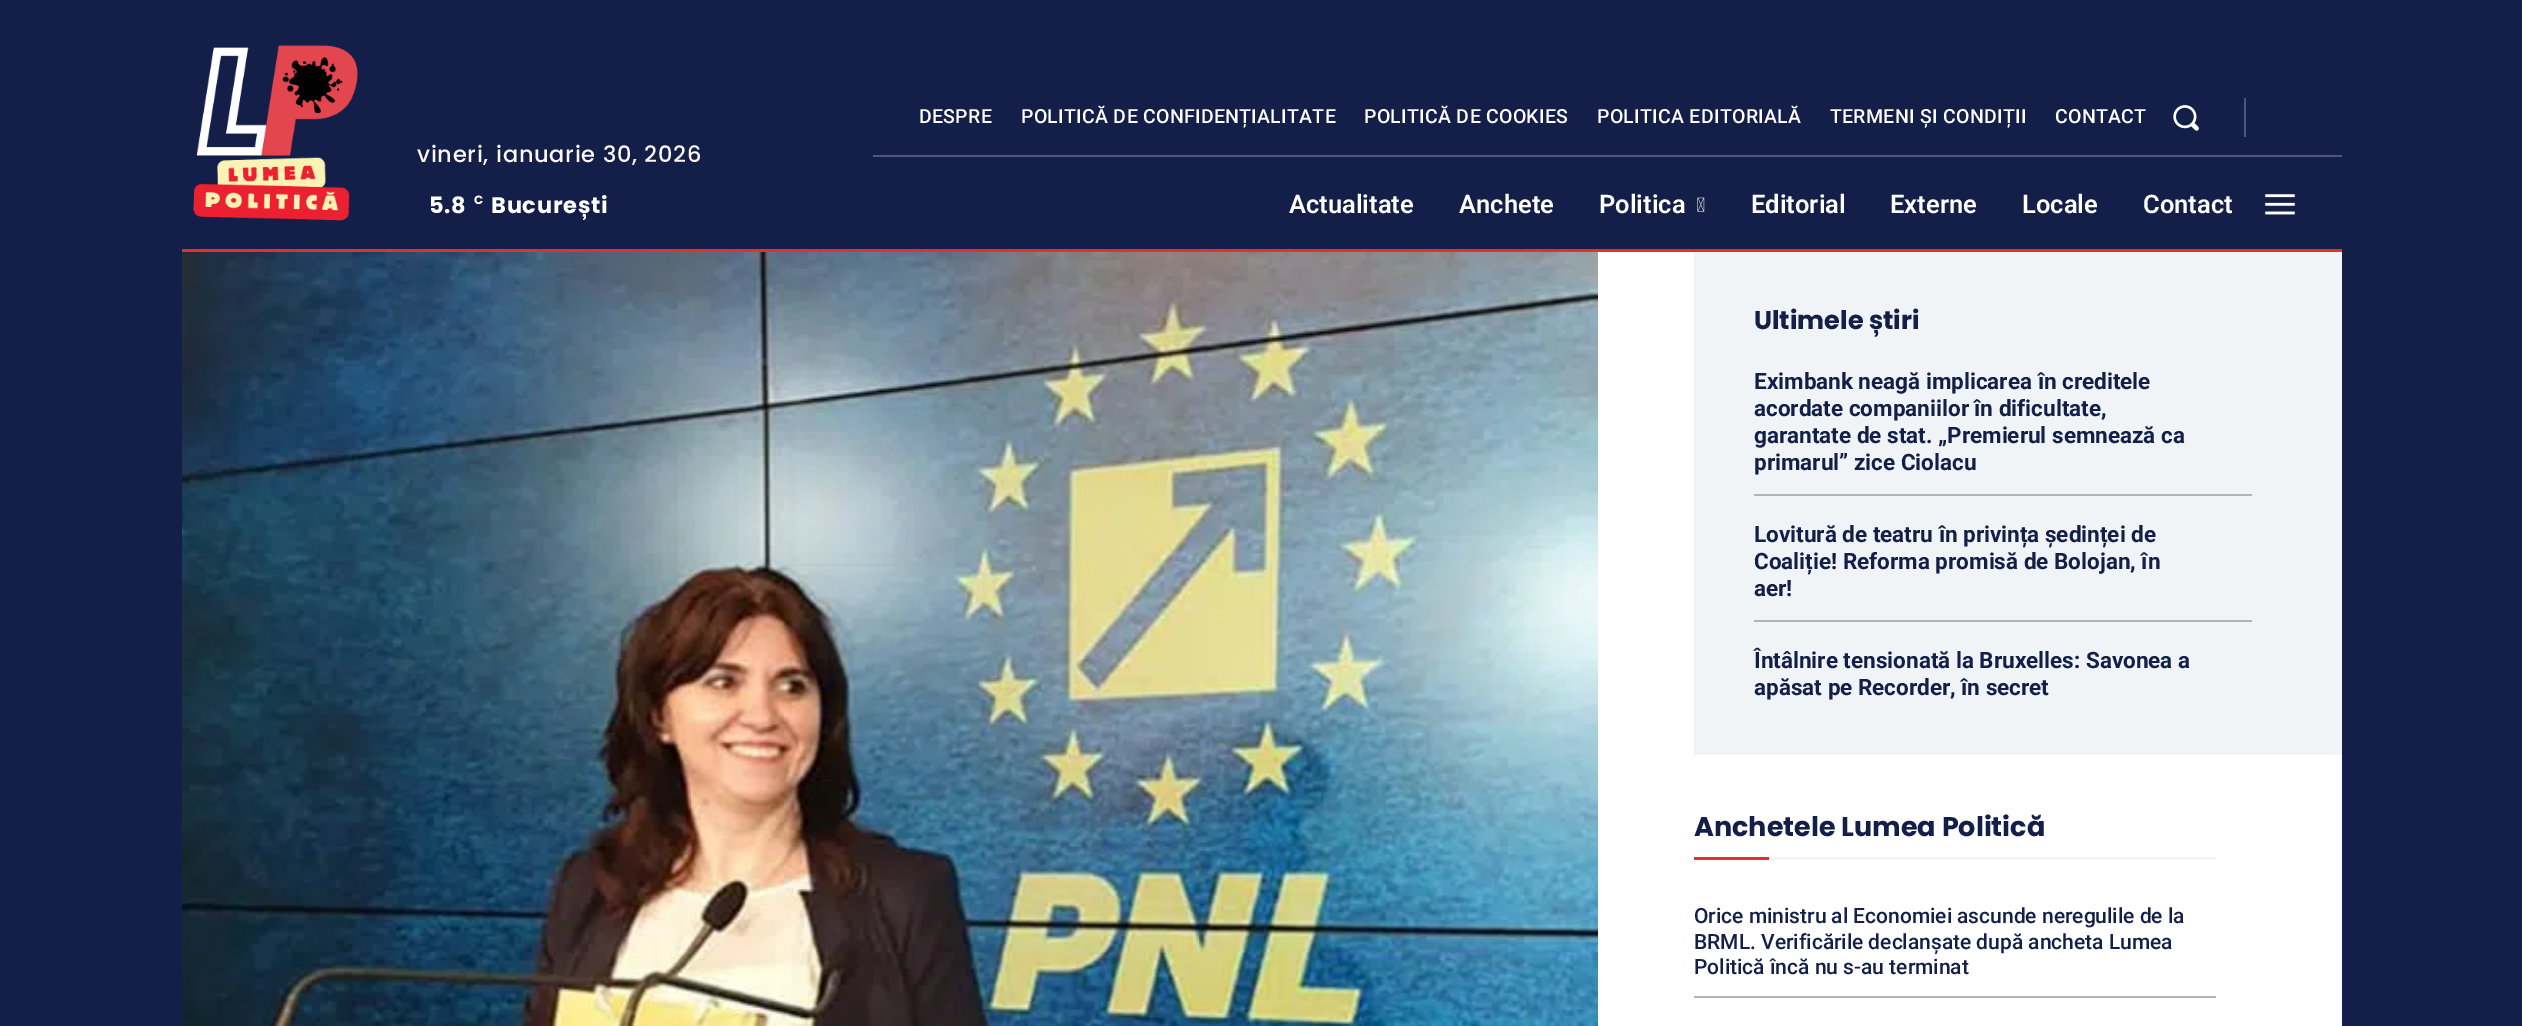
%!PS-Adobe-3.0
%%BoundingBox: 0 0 2522 1026
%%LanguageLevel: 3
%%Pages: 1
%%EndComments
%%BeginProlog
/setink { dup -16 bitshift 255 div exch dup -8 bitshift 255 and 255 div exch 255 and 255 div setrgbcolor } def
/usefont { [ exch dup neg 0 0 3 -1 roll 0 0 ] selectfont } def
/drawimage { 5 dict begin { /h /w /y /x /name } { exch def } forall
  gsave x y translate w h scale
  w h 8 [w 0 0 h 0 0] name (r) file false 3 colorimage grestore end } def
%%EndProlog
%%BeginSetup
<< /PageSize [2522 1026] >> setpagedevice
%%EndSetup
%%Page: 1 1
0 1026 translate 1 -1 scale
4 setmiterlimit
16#131F49 setink
0 0 2522 1026 rectfill
(img1.raw) 193 45 165 176 drawimage
/Poppins-Medium 22.5 usefont
16#FCF7F5 setink
417 162 moveto 0.75 0 (vineri, ianuarie 30, 2026) ashow
/Poppins-Bold 22.5 usefont
16#FFFFFF setink
429 213 moveto 0.75 0 (5.8) ashow
/Poppins-Bold 12 usefont
474 204 moveto 0.75 0 (C) ashow
/Poppins-Bold 22.5 usefont
491 213 moveto 0.75 0 (București) ashow
/Roboto-Medium 19.5 usefont
919 123 moveto 0.3 0 (DESPRE) ashow
1021 123 moveto 0.3 0 (POLITICĂ DE CONFIDENȚIALITATE) ashow
1364 123 moveto 0.3 0 (POLITICĂ DE COOKIES) ashow
1597 123 moveto 0.3 0 (POLITICA EDITORIALĂ) ashow
1830 123 moveto 0.3 0 (TERMENI ȘI CONDIȚII) ashow
2055 123 moveto 0.3 0 (CONTACT) ashow
(img2.raw) 2173 105 26 26 drawimage
16#4E5777 setink
2244 98 2 39 rectfill
873 155 1469 2 rectfill
/Roboto-SemiBold 25.5 usefont
16#FFFFFF setink
[
    [(Actualitate) 1289 213]
    [(Anchete) 1459 213]
    [(Politica) 1599 213]
] { aload pop moveto show } forall
(img3.raw) 1697 197 8 15 drawimage
[
    [(Editorial) 1751 213]
    [(Externe) 1890 213]
    [(Locale) 2022 213]
    [(Contact) 2143 213]
] { aload pop moveto show } forall
(img4.raw) 2265 194 30 21 drawimage
16#E52E2E setink
182 249 2160 3 rectfill
(img5.raw) 182 252 1416 774 drawimage
16#FFFFFF setink
1598 252 744 774 rectfill
16#F1F4F7 setink
1694 252 648 503 rectfill
/Poppins-Bold 25.5 usefont
16#131F49 setink
1754 329 moveto (Ultimele știri) show
/Roboto-Bold 22.5 usefont
[
    [(Eximbank neagă implicarea în creditele) 1754 389]
    [(acordate companiilor în dificultate,) 1754 416]
    [(garantate de stat. „Premierul semnează ca) 1754 443]
    [(primarul” zice Ciolacu) 1754 470]
] { aload pop moveto show } forall
16#B1B4BC setink
1754 494 498 2 rectfill
16#131F49 setink
[
    [(Lovitură de teatru în privința ședinței de) 1754 542]
    [(Coaliție! Reforma promisă de Bolojan, în) 1754 569]
    [(aer!) 1754 596]
] { aload pop moveto show } forall
16#B1B4BC setink
1754 620 498 2 rectfill
16#131F49 setink
1754 668 moveto (Întâlnire tensionată la Bruxelles: Savonea a) show
1754 695 moveto (apăsat pe Recorder, în secret) show
/Poppins-Bold 27 usefont
1694 836 moveto (Anchetele Lumea Politică) show
16#E52E2E setink
1694 857 75 3 rectfill
16#F5F5F5 setink
1769 857 447 3 rectfill
/Roboto-Medium 21 usefont
16#131F49 setink
[
    [(Orice ministru al Economiei ascunde neregulile de la) 1694 923]
    [(BRML. Verificările declanșate după ancheta Lumea) 1694 949]
    [(Politică încă nu s-au terminat) 1694 974]
] { aload pop moveto show } forall
16#B1B4BC setink
1694 996 522 2 rectfill
showpage
%%EOF
